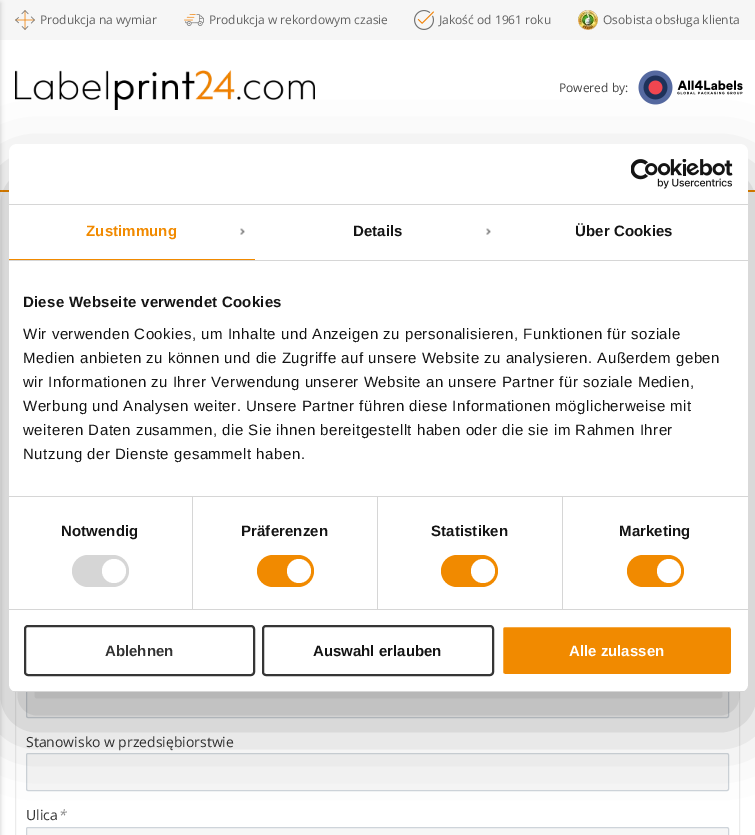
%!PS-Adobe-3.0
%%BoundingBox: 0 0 755 835
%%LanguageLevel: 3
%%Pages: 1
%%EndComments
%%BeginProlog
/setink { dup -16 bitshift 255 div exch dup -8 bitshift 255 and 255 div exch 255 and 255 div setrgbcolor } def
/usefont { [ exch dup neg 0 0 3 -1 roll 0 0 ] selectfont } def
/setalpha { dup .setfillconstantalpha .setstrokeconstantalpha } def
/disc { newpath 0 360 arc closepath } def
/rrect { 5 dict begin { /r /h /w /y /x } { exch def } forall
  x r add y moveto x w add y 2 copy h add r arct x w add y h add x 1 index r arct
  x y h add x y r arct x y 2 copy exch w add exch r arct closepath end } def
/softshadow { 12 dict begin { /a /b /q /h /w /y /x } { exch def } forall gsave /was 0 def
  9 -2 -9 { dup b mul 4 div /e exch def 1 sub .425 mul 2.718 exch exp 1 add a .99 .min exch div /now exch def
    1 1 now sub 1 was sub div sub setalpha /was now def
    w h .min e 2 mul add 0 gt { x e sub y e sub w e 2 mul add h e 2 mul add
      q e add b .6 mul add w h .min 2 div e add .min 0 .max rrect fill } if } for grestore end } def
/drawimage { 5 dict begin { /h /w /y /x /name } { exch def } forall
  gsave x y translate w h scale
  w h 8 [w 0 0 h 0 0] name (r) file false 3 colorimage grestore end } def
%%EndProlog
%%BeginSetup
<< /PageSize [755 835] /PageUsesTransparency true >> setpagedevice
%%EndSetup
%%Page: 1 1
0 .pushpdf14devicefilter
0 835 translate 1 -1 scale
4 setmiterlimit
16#FFFFFF setink
0 0 755 835 rectfill
16#F6F6F6 setink
0 0 755 40 rectfill
(img1.raw) 15 10 20 20 drawimage
/OpenSans-Regular 12 usefont
16#616161 setink
40 24 moveto (Produkcja na wymiar) show
(img2.raw) 184 14 20 12 drawimage
209 24 moveto (Produkcja w rekordowym czasie) show
(img3.raw) 414 10 20 20 drawimage
439 24 moveto (Jakość od 1961 roku) show
(img4.raw) 578 10 20 20 drawimage
603 24 moveto (Osobista obsługa klienta) show
(img5.raw) 15 70 300 40 drawimage
16#F18A00 setink
0 190 755 2 rectfill
16#000000 setink
-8 3 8 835 0 2.5 0.2 softshadow
16#444444 setink
559 92 moveto (Powered by:) show
(img6.raw) 638 70 105 35 drawimage
16#EBEBEB setink
15.5 375.5 724 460 rectstroke
16#F6F6F6 setink
26.5 680.5 702 37 1.5 rrect gsave fill grestore
16#CED4DA setink
stroke
/OpenSans-Regular 14 usefont
16#333333 setink
26 747 moveto (Stanowisko w przedsiębiorstwie) show
16#F6F6F6 setink
26.5 753.5 702 37 1.5 rrect gsave fill grestore
16#CED4DA setink
stroke
16#333333 setink
26 820 moveto (Ulica) show
/OpenSans-Italic 14 usefont
16#8C8C8C setink
58 820 moveto (*) show
16#F6F6F6 setink
27 828 701 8 1 rrect fill
16#CED4DA setink
26.5 827.5 702 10 1.5 rrect stroke
16#000000 setink
9 176 739 548 8 34 0.3 softshadow
16#FFFFFF setink
9 144 739 548 8 rrect fill
16#D6D6D6 setink
9 204 739 1 rectfill
(img7.raw) 631 159 102 30 drawimage
9 260 739 1 rectfill
16#F18A00 setink
9 259 246 1 rectfill
/LiberationSans-Bold 15 usefont
86 236 moveto 0.1 0 (Zustimmung) ashow
(img8.raw) 240 228 5 7 drawimage
16#141414 setink
353 236 moveto 0.1 0 (Details) ashow
(img8.raw) 486 228 5 7 drawimage
575 236 moveto 0.1 0 (Über Cookies) ashow
16#D6D6D6 setink
9 496 739 1 rectfill
16#141414 setink
23 307 moveto 0.25 0 (Diese Webseite verwendet Cookies) ashow
/LiberationSans-Regular 15 usefont
23 339 moveto 0.5 0 (Wir verwenden Cookies, um Inhalte und Anzeigen zu personalisieren, Funktionen für soziale) ashow
23 363 moveto 0.5 0 (Medien anbieten zu können und die Zugriffe auf unsere Website zu analysieren. Außerdem geben) ashow
23 387 moveto 0.5 0 (wir Informationen zu Ihrer Verwendung unserer Website an unsere Partner für soziale Medien,) ashow
23 411 moveto 0.5 0 (Werbung und Analysen weiter. Unsere Partner führen diese Informationen möglicherweise mit) ashow
23 435 moveto 0.5 0 (weiteren Daten zusammen, die Sie ihnen bereitgestellt haben oder die sie im Rahmen Ihrer) ashow
23 459 moveto 0.5 0 (Nutzung der Dienste gesammelt haben.) ashow
16#D6D6D6 setink
9 609 739 1 rectfill
192 497 1 112 rectfill
/LiberationSans-Bold 15 usefont
16#141414 setink
61 536 moveto 0.1 0 (Notwendig) ashow
16#D6D6D6 setink
72 555 57 32 16 rrect fill
16#FFFFFF setink
114 571 12 disc fill
16#D6D6D6 setink
377 497 1 112 rectfill
16#141414 setink
241 536 moveto 0.1 0 (Präferenzen) ashow
16#F18A00 setink
257 555 57 32 16 rrect fill
16#FFFFFF setink
299 571 12 disc fill
16#D6D6D6 setink
562 497 1 112 rectfill
16#141414 setink
431 536 moveto 0.1 0 (Statistiken) ashow
16#F18A00 setink
441 555 57 32 16 rrect fill
16#FFFFFF setink
483 571 12 disc fill
16#141414 setink
619 536 moveto 0.1 0 (Marketing) ashow
16#F18A00 setink
627 555 57 32 16 rrect fill
16#FFFFFF setink
669 571 12 disc fill
gsave
9 144 739 548 8 rrect clip newpath
16#D6D6D6 setink
9 691 739 1 rectfill
grestore
16#353535 setink
2 setlinewidth
25 626 229 49 3 rrect stroke
16#333333 setink
105 656 moveto (Ablehnen) show
16#353535 setink
263 626 230 49 3 rrect stroke
16#141414 setink
313 656 moveto (Auswahl erlauben) show
16#F18A00 setink
502 626 230 49 3 rrect gsave fill grestore
16#FFFFFF setink
stroke
569 656 moveto (Alle zulassen) show
.poppdf14devicefilter showpage
%%EOF
